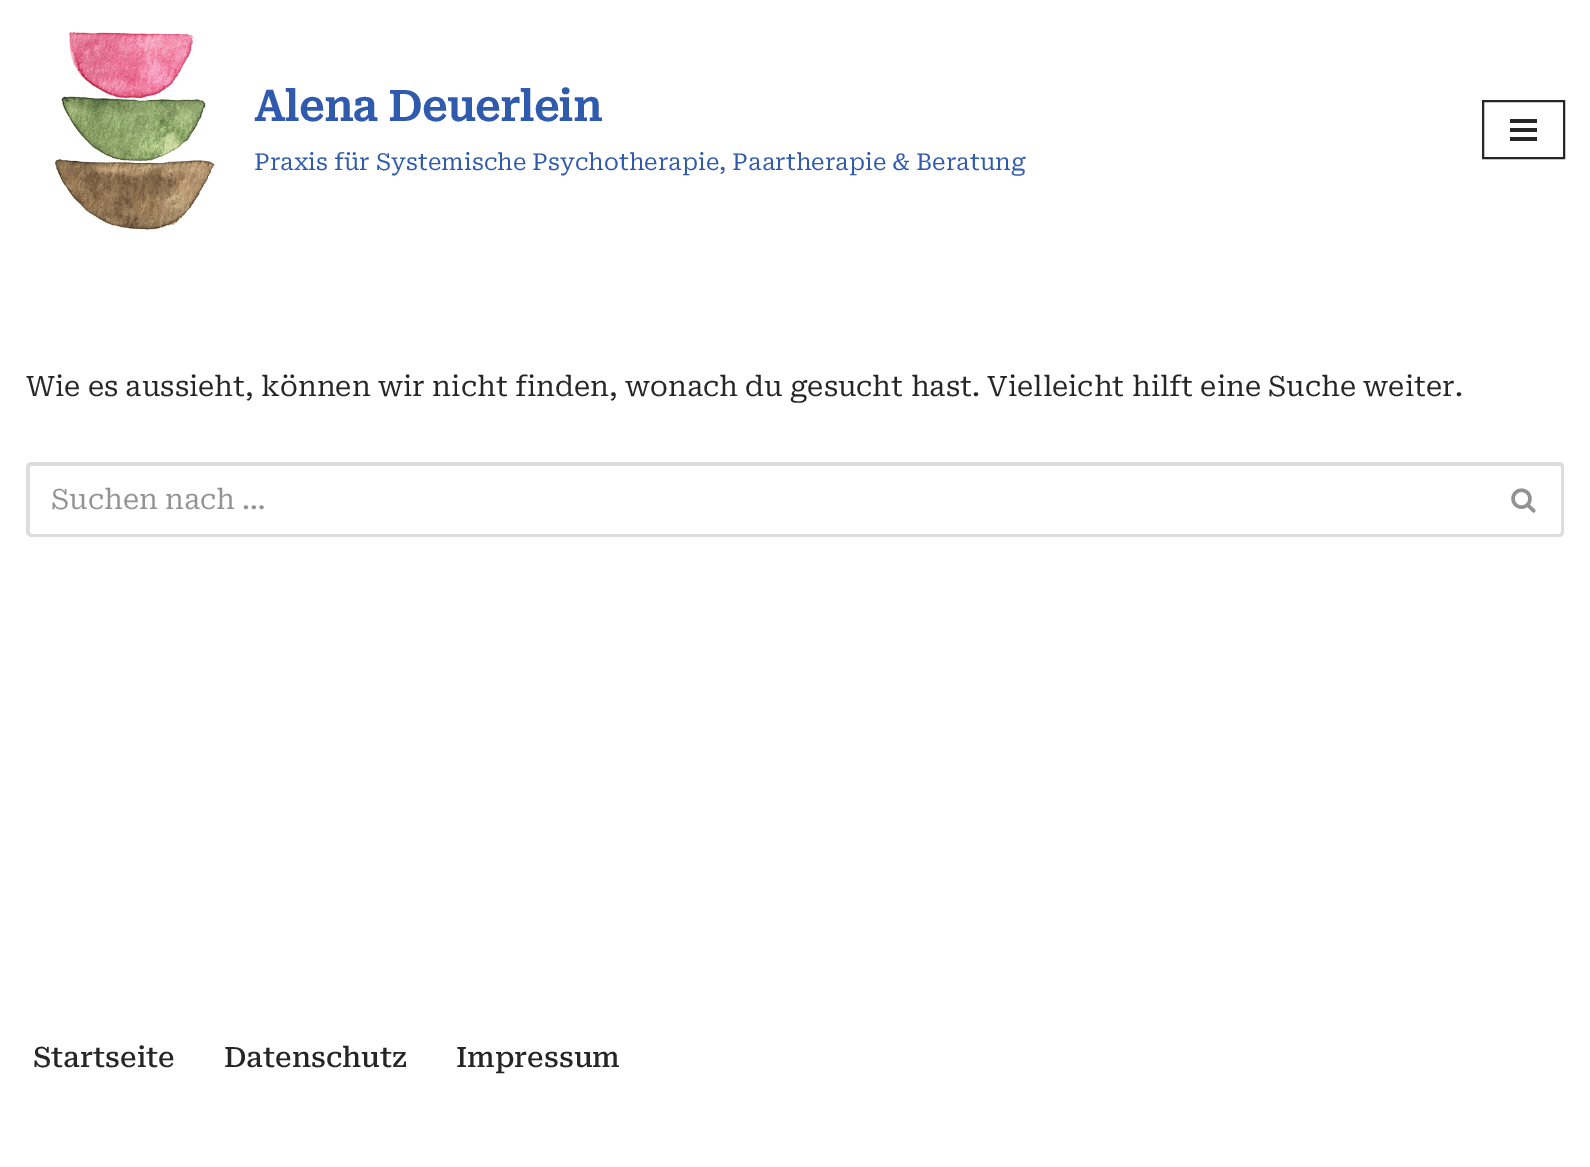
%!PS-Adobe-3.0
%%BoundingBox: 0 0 1590 1167
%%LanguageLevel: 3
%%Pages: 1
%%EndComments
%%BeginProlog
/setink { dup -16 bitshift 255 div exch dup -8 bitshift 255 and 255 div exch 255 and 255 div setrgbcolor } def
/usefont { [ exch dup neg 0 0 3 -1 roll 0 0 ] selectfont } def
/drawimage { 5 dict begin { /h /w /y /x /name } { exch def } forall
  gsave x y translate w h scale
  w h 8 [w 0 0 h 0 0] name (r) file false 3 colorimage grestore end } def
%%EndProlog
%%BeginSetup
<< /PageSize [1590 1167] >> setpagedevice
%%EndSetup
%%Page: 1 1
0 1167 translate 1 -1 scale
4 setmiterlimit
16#FFFFFF setink
0 0 1590 1167 rectfill
(img1.raw) 55 32 160 198 drawimage
/RobotoSerif-Bold 42 usefont
16#2F5AAE setink
254 121 moveto (Alena Deuerlein) show
/RobotoSerif-Regular 23.3 usefont
254 170 moveto (Praxis für Systemische Psychotherapie, Paartherapie & Beratung) show
16#272626 setink
2 setlinewidth
1483 101 81 57 rectstroke
[
    [1510 119 27 4 16#272626]
    [1510 128 27 4 16#272626]
    [1510 137 27 4 16#272626]
] { aload pop setink rectfill } forall
/RobotoSerif-Regular 28 usefont
26 396 moveto (Wie es aussieht, können wir nicht finden, wonach du gesucht hast. Vielleicht hilft eine Suche weiter.) show
16#DDDDDD setink
32 462 moveto 1486 462 lineto 1486 537 lineto 32 537 lineto 29 537 26 535 26 532 curveto 26 467 lineto 26 464 29 462 32 462 curveto closepath 32 466 moveto 1486 466 lineto 1486 534 lineto 32 534 lineto 31 534 30 533 30 532 curveto 30 467 lineto 30 466 31 466 32 466 curveto closepath eofill
16#939393 setink
51 509 moveto (Suchen nach …) show
16#DDDDDD setink
1486 462 moveto 1559 462 lineto 1562 462 1564 464 1564 467 curveto 1564 532 lineto 1564 535 1562 537 1559 537 curveto 1486 537 lineto closepath 1486 466 moveto 1559 466 lineto 1560 466 1561 466 1561 467 curveto 1561 532 lineto 1561 533 1560 534 1559 534 curveto 1486 534 lineto closepath eofill
(img2.raw) 1511 488 25 25 drawimage
/RobotoSerif-Medium 28 usefont
16#272626 setink
[
    [(Startseite) 33 1067]
    [(Datenschutz) 224 1067]
    [(Impressum) 456 1067]
] { aload pop moveto show } forall
showpage
%%EOF
